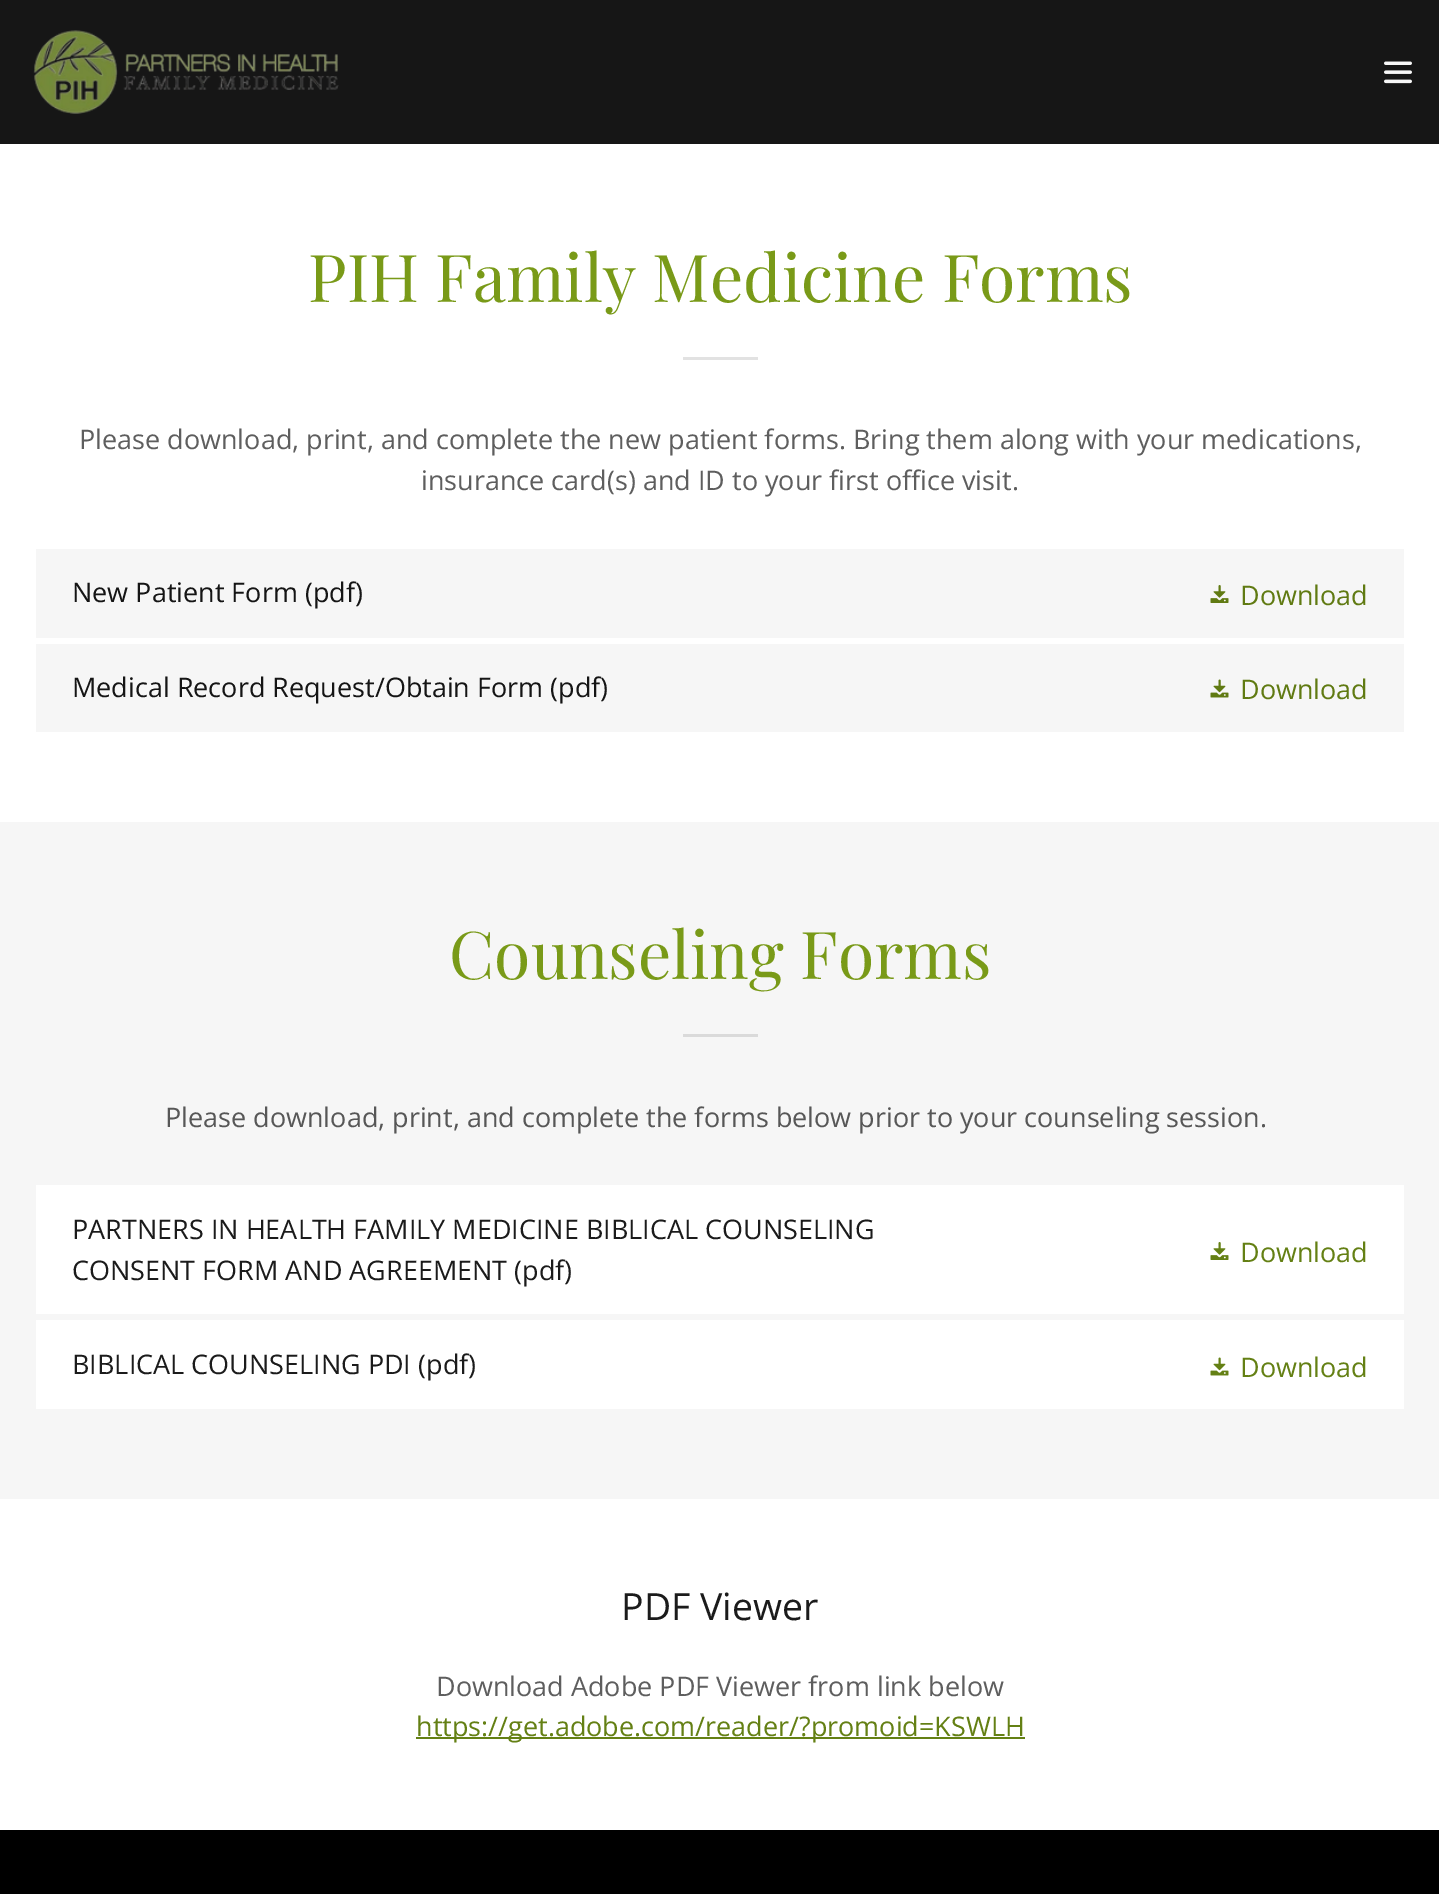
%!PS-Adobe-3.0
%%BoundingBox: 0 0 1439 1894
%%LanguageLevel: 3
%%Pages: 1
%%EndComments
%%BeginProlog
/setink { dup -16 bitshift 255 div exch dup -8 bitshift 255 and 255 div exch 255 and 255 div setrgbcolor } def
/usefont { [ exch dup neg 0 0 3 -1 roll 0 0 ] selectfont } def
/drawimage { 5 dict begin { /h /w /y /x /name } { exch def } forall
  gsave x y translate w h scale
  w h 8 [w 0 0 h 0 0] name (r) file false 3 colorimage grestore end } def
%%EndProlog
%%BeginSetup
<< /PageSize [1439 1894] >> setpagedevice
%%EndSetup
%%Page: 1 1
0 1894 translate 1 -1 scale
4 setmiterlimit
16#000000 setink
0 0 1439 1894 rectfill
16#161616 setink
0 0 1439 144 rectfill
(img1.raw) 33 30 306 84 drawimage
(img2.raw) 1384 61 28 23 drawimage
16#FFFFFF setink
0 144 1439 678 rectfill
/PlayfairDisplay-Regular 66 usefont
16#799A18 setink
308 302 moveto (PIH Family Medicine Forms) show
16#E2E2E2 setink
683 357 75 3 rectfill
/OpenSans-Regular 27 usefont
16#5E5E5E setink
79 449 moveto (Please download, print, and complete the new patient forms. Bring them along with your medications,) show
421 490 moveto (insurance card\(s\) and ID to your first office visit.) show
16#F6F6F6 setink
36 549 1368 89 rectfill
16#151515 setink
72 602 moveto (New Patient Form \(pdf\)) show
(img3.raw) 1210 585 19 18 drawimage
16#607A12 setink
1240 605 moveto (Download) show
16#F6F6F6 setink
36 644 1368 88 rectfill
16#151515 setink
72 697 moveto (Medical Record Request/Obtain Form \(pdf\)) show
(img4.raw) 1210 679 19 19 drawimage
16#607A12 setink
1240 699 moveto (Download) show
16#F6F6F6 setink
0 822 1439 677 rectfill
/PlayfairDisplay-Regular 66 usefont
16#799A18 setink
449 979 moveto (Counseling Forms) show
16#DADADA setink
683 1034 75 3 rectfill
/OpenSans-Regular 27 usefont
16#575757 setink
165 1127 moveto (Please download, print, and complete the forms below prior to your counseling session.) show
16#FFFFFF setink
36 1185 1368 129 rectfill
16#1B1B1B setink
72 1239 moveto (PARTNERS IN HEALTH FAMILY MEDICINE BIBLICAL COUNSELING) show
72 1280 moveto (CONSENT FORM AND AGREEMENT \(pdf\)) show
(img5.raw) 1210 1242 19 18 drawimage
16#648014 setink
1240 1262 moveto (Download) show
16#FFFFFF setink
36 1320 1368 89 rectfill
16#1B1B1B setink
72 1374 moveto (BIBLICAL COUNSELING PDI \(pdf\)) show
(img6.raw) 1210 1357 19 19 drawimage
16#648014 setink
1240 1377 moveto (Download) show
16#FFFFFF setink
0 1499 1439 331 rectfill
/OpenSans-Regular 37.5 usefont
16#1B1B1B setink
621 1620 moveto (PDF Viewer) show
/OpenSans-Regular 27 usefont
16#5E5E5E setink
436 1696 moveto (Download Adobe PDF Viewer from link below) show
16#648014 setink
416 1737 609 2 rectfill
416 1736 moveto (https://get.adobe.com/reader/?promoid=KSWLH) show
showpage
%%EOF
